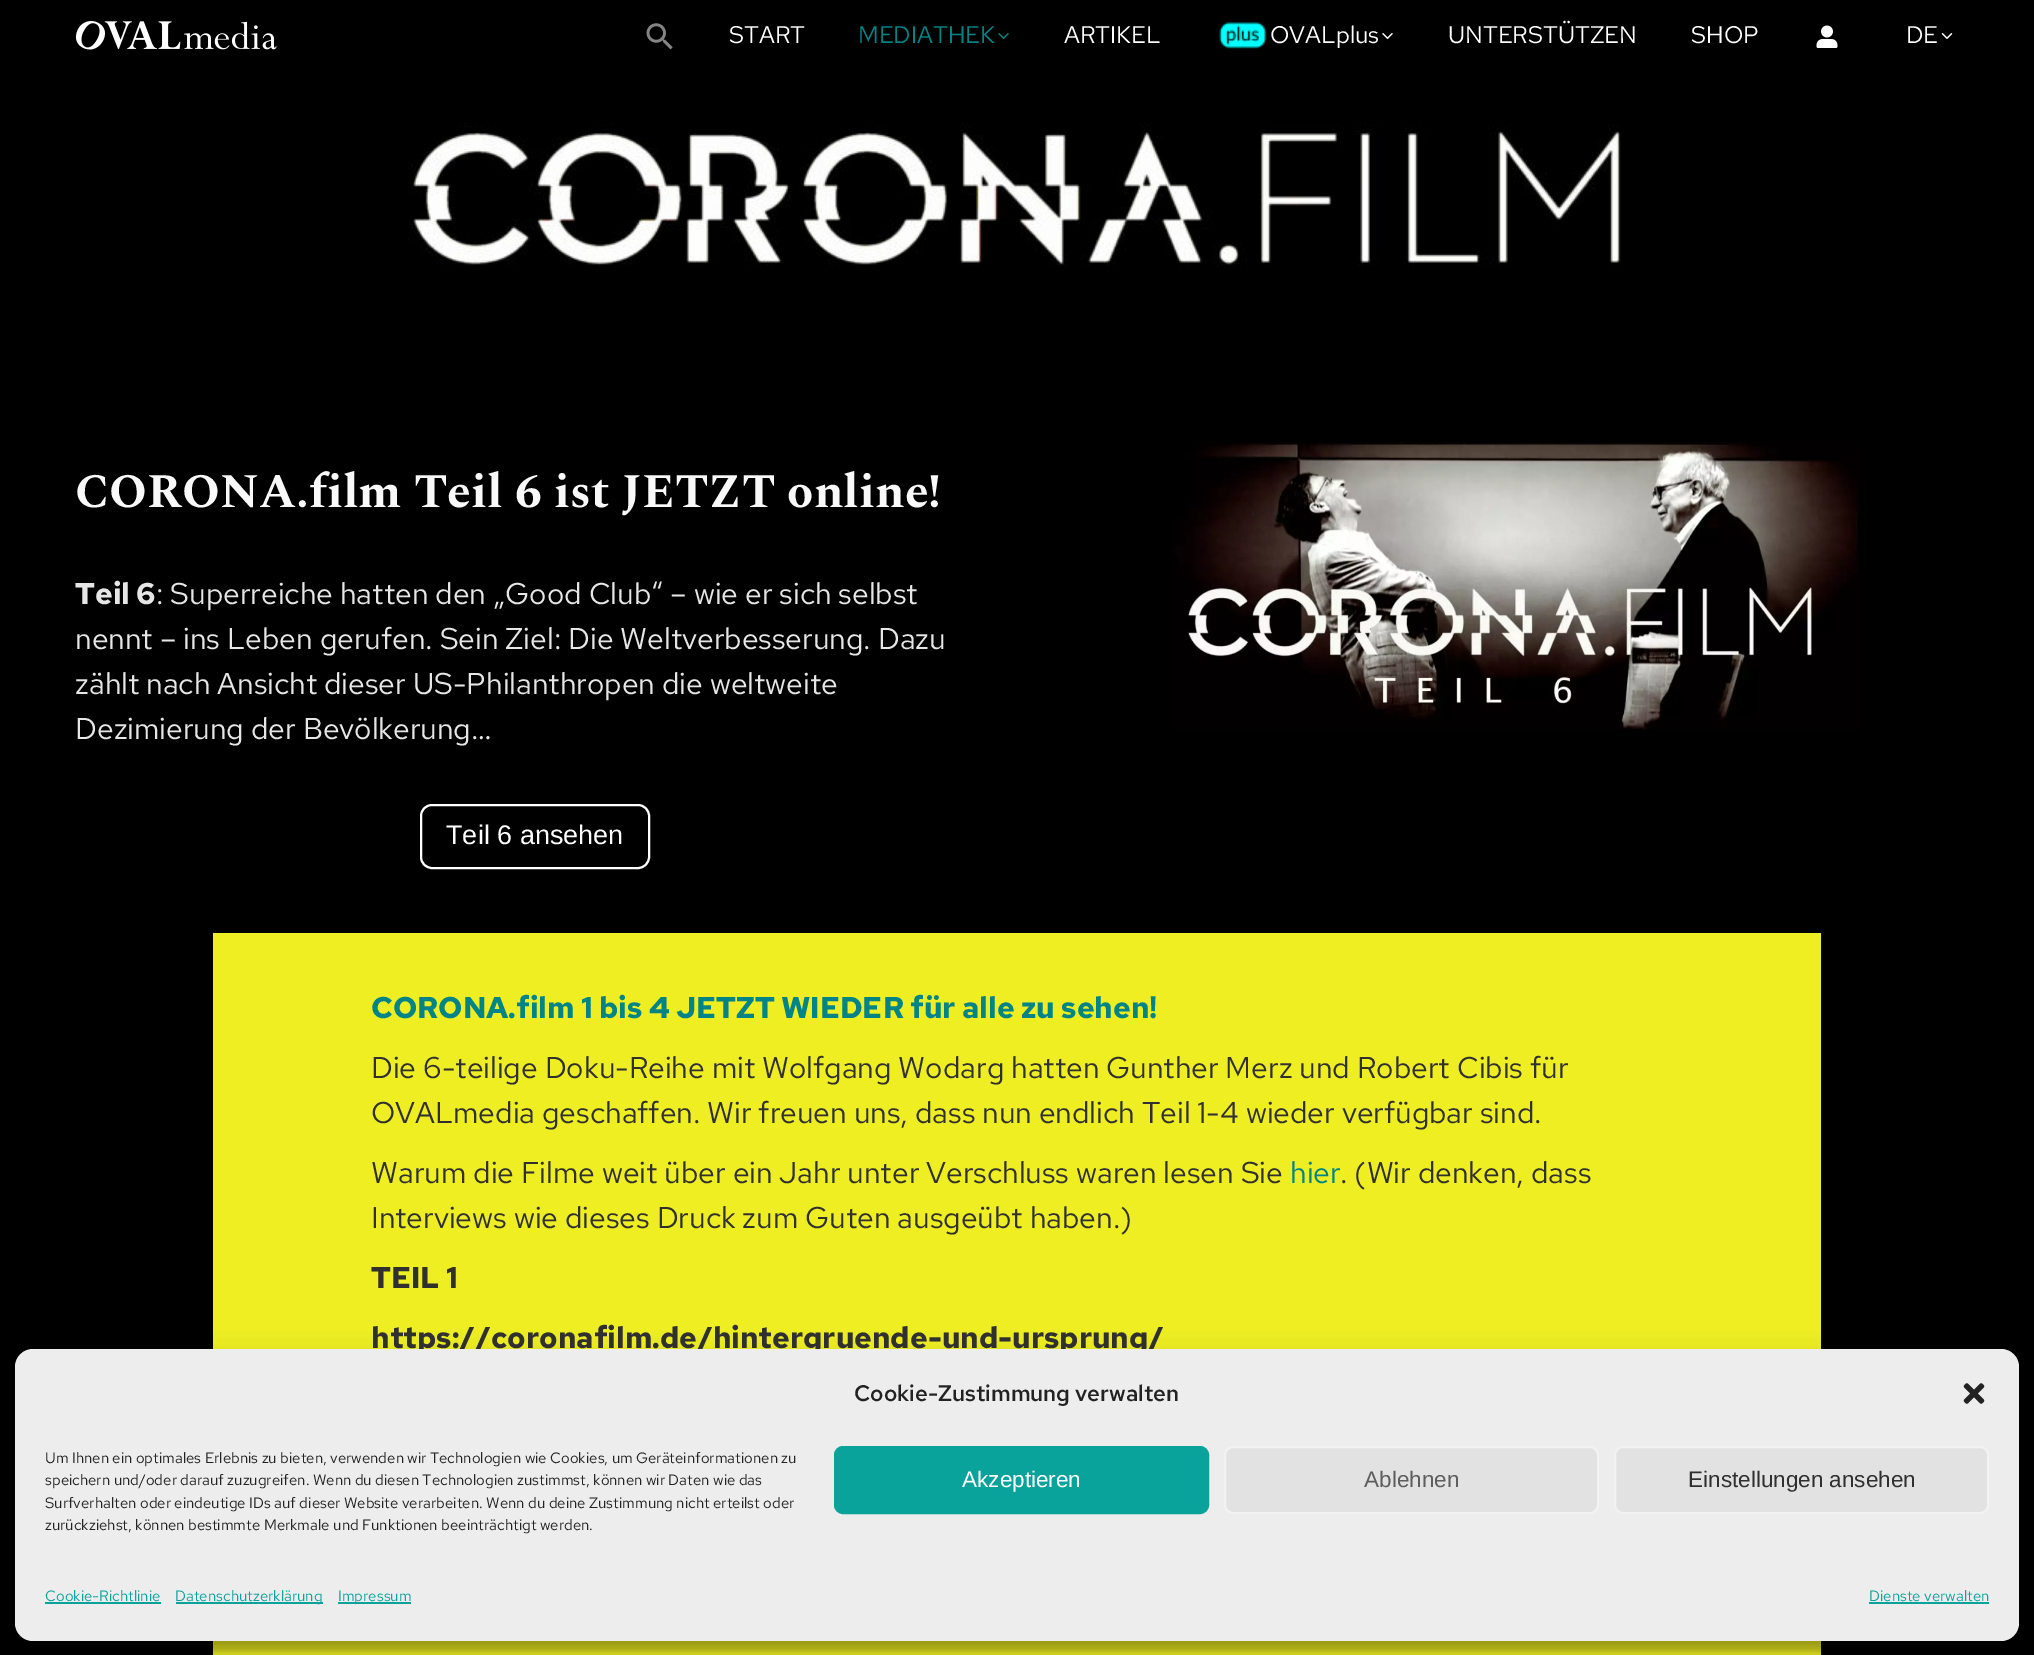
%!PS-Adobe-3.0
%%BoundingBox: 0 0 2034 1655
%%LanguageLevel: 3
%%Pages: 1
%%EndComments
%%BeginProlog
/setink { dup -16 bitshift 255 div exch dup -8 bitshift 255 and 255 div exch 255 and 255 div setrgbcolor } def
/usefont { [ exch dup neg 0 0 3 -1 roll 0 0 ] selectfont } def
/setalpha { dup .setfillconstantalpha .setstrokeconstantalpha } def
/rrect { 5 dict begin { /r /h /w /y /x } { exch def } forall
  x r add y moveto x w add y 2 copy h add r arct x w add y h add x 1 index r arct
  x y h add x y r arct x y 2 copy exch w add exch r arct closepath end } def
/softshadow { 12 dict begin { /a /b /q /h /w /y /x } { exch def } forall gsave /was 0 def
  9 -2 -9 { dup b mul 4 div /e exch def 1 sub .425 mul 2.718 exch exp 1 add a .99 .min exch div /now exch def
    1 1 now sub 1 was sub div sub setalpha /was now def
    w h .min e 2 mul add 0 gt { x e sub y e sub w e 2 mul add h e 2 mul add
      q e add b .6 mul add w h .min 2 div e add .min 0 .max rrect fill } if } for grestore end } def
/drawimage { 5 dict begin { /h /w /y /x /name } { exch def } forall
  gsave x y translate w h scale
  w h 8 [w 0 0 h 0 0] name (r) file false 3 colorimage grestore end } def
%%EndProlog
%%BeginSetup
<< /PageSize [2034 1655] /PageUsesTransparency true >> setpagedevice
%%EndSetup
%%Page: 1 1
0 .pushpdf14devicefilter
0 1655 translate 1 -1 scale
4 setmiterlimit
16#000000 setink
0 0 2034 1655 rectfill
(img1.raw) 75 21 202 29 drawimage
(img2.raw) 646 23 27 27 drawimage
/RedHatText-Regular 24 usefont
16#FFFFFF setink
729 43 moveto (START) show
16#018485 setink
858 43 moveto (MEDIATHEK) show
(img3.raw) 998 33 11 6 drawimage
16#FFFFFF setink
1064 43 moveto (ARTIKEL) show
(img4.raw) 1219 22 48 27 drawimage
1270 43 moveto (OVALplus) show
(img5.raw) 1382 33 11 6 drawimage
1448 43 moveto (UNTERSTÜTZEN) show
1691 43 moveto (SHOP) show
(img6.raw) 1816 25 22 23 drawimage
1906 43 moveto (DE) show
(img7.raw) 1941 33 12 6 drawimage
(img8.raw) 408 123 1213 144 drawimage
/Spectral-Bold 48 usefont
16#F9F9F9 setink
75 507 moveto (CORONA.film Teil 6 ist JETZT online!) show
/RedHatText-Bold 30 usefont
16#E6E6E6 setink
75 604 moveto (Teil 6) show
/RedHatText-Regular 30 usefont
[
    [(: Superreiche hatten den „Good Club“ – wie er sich selbst) 156 604]
    [(nennt – ins Leben gerufen. Sein Ziel: Die Weltverbesserung. Dazu) 75 649]
    [(zählt nach Ansicht dieser US-Philanthropen die weltweite) 75 694]
    [(Dezimierung der Bevölkerung…) 75 739]
] { aload pop moveto show } forall
16#FFFFFF setink
2 setlinewidth
421 805 228 63 11 rrect stroke
/LiberationSans-Regular 27 usefont
446 844 moveto (Teil 6 ansehen) show
(img9.raw) 1171 441 688 289 drawimage
16#EEEE22 setink
213 933 1608 722 rectfill
/RedHatText-Bold 30 usefont
16#018485 setink
371 1018 moveto (CORONA.film 1 bis 4 JETZT WIEDER für alle zu sehen!) show
/RedHatText-Regular 30 usefont
16#303030 setink
[
    [(Die 6-teilige Doku-Reihe mit Wolfgang Wodarg hatten Gunther Merz und Robert Cibis für) 371 1078]
    [(OVALmedia geschaffen. Wir freuen uns, dass nun endlich Teil 1-4 wieder verfügbar sind.) 371 1123]
    [(Warum die Filme weit über ein Jahr unter Verschluss waren lesen Sie) 371 1183]
] { aload pop moveto show } forall
16#018485 setink
1290 1183 moveto (hier) show
16#303030 setink
1340 1183 moveto (. \(Wir denken, dass) show
371 1228 moveto (Interviews wie dieses Druck zum Guten ausgeübt haben.\)) show
/RedHatText-Bold 30 usefont
371 1288 moveto (TEIL 1) show
371 1348 moveto (https://coronafilm.de/hintergruende-und-ursprung/) show
16#000000 setink
15 1358 2004 292 18 4.5 0.23 softshadow
15 1364 2004 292 18 15 0.19 softshadow
16#EDEDED setink
15 1349 2004 292 18 rrect fill
/RedHatText-Medium 22.5 usefont
16#222222 setink
854 1401 moveto (Cookie-Zustimmung verwalten) show
(img10.raw) 1963 1383 22 21 drawimage
/RedHatText-Regular 15 usefont
[
    [(Um Ihnen ein optimales Erlebnis zu bieten, verwenden wir Technologien wie Cookies, um Geräteinformationen zu) 45 1463]
    [(speichern und/oder darauf zuzugreifen. Wenn du diesen Technologien zustimmst, können wir Daten wie das) 45 1485]
    [(Surfverhalten oder eindeutige IDs auf dieser Website verarbeiten. Wenn du deine Zustimmung nicht erteilst oder) 45 1508]
    [(zurückziehst, können bestimmte Merkmale und Funktionen beeinträchtigt werden.) 45 1530]
] { aload pop moveto show } forall
16#0AA39B setink
835 1447 373 66 8 rrect gsave fill grestore
stroke
/LiberationSans-Regular 22.5 usefont
16#FFFFFF setink
962 1487 moveto (Akzeptieren) show
16#E2E2E2 setink
1225 1447 373 66 8 rrect gsave fill grestore
16#F2F2F2 setink
stroke
16#5E5E5E setink
1364 1487 moveto (Ablehnen) show
16#E2E2E2 setink
1615 1447 373 66 8 rrect gsave fill grestore
16#F2F2F2 setink
stroke
16#303030 setink
1688 1487 moveto (Einstellungen ansehen) show
/RedHatText-Regular 15 usefont
16#0AA39B setink
45 1601 moveto (Cookie-Richtlinie) show
45 1602 116 2 rectfill
176 1602 147 2 rectfill
175 1601 moveto (Datenschutzerklärung) show
338 1602 73 2 rectfill
338 1601 moveto (Impressum) show
1869 1601 moveto (Dienste verwalten) show
1869 1602 120 2 rectfill
.poppdf14devicefilter showpage
%%EOF
